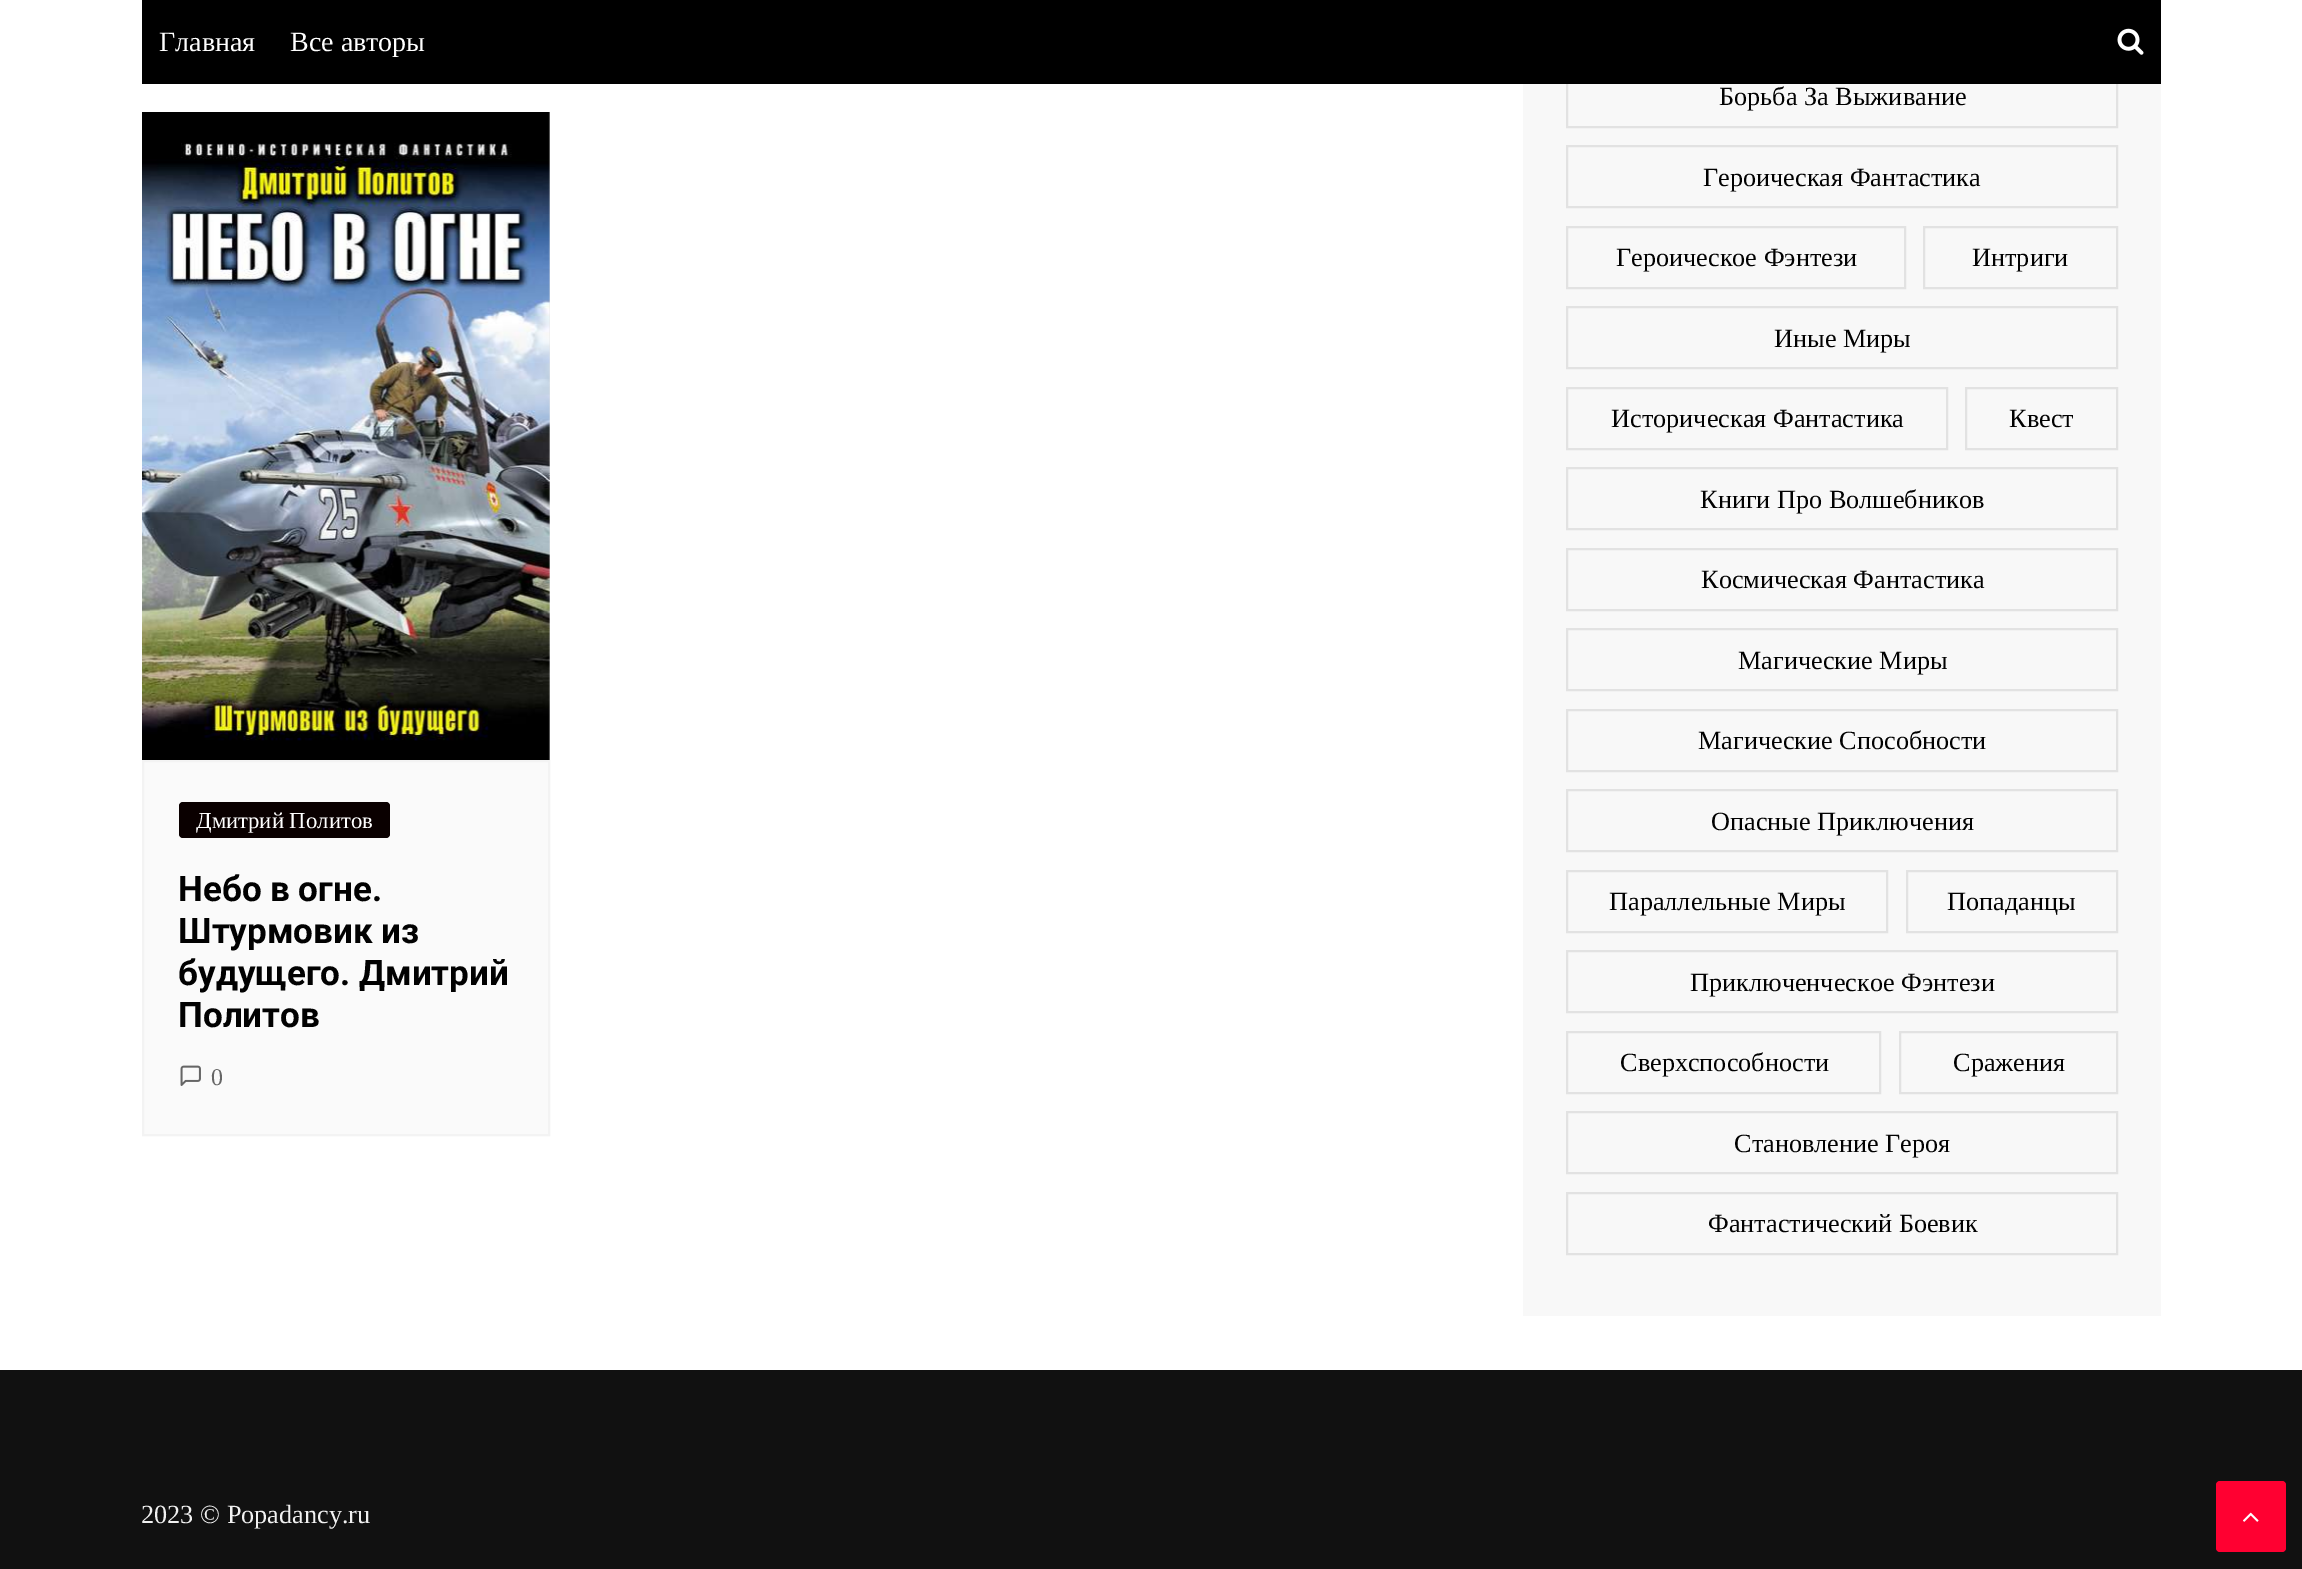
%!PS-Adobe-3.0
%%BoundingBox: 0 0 2302 1569
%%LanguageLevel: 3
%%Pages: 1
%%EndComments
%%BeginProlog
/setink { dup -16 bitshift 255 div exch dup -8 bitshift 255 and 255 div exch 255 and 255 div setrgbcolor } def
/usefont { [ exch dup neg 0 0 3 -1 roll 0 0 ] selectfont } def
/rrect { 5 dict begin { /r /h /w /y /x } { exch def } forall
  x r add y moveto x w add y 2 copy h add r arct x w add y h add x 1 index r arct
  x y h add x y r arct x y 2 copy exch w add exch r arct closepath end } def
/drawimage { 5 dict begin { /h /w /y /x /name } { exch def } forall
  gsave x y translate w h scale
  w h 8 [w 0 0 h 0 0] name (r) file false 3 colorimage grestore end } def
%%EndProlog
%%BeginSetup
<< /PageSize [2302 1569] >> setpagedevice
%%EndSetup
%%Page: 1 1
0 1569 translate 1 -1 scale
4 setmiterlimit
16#FFFFFF setink
0 0 2302 1569 rectfill
16#F8F8F8 setink
1523 84 638 1232 rectfill
16#E2E2E2 setink
2 setlinewidth
1567 66 550 61 rectstroke
16#000000 setink
142 0 2019 84 rectfill
/LiberationSerif-Regular 28 usefont
16#FFFFFF setink
159 51 moveto (Главная) show
290 51 moveto (Все авторы) show
(img1.raw) 2117 28 27 27 drawimage
16#E5E5E5 setink
548 112 2 648 rectfill
(img2.raw) 142 112 408 648 drawimage
16#FAFAFA setink
143 761 moveto 549 761 lineto 549 1135 lineto 143 1135 lineto closepath gsave fill grestore
16#F3F3F3 setink
stroke
16#0A0000 setink
179 802 211 36 4 rrect fill
/LiberationSerif-Regular 22.75 usefont
16#FFFFFF setink
196 828 moveto (Дмитрий Политов) show
/Roboto-Bold 35 usefont
16#010101 setink
[
    [(Небо в огне.) 178 901]
    [(Штурмовик из) 178 943]
    [(будущего. Дмитрий) 178 985]
    [(Политов) 178 1027]
] { aload pop moveto show } forall
(img3.raw) 180 1065 21 21 drawimage
/LiberationSerif-Regular 24 usefont
16#666666 setink
211 1085 moveto (0) show
/LiberationSerif-Regular 26.25 usefont
16#010101 setink
1719 105 moveto (Борьба За Выживание) show
16#E2E2E2 setink
1567 146 550 61 rectstroke
16#010101 setink
1703 186 moveto (Героическая Фантастика) show
16#E2E2E2 setink
1567 227 338 61 rectstroke
16#010101 setink
1616 266 moveto (Героическое Фэнтези) show
16#E2E2E2 setink
1924 227 193 61 rectstroke
16#010101 setink
1972 266 moveto (Интриги) show
16#E2E2E2 setink
1567 307 550 61 rectstroke
16#010101 setink
1774 347 moveto (Иные Миры) show
16#E2E2E2 setink
1567 388 380 61 rectstroke
16#010101 setink
1611 427 moveto (Историческая Фантастика) show
16#E2E2E2 setink
1966 388 151 61 rectstroke
16#010101 setink
2009 427 moveto (Квест) show
16#E2E2E2 setink
1567 468 550 61 rectstroke
16#010101 setink
1700 508 moveto (Книги Про Волшебников) show
16#E2E2E2 setink
1567 549 550 61 rectstroke
16#010101 setink
1701 588 moveto (Космическая Фантастика) show
16#E2E2E2 setink
1567 629 550 61 rectstroke
16#010101 setink
1738 669 moveto (Магические Миры) show
16#E2E2E2 setink
1567 710 550 61 rectstroke
16#010101 setink
1698 749 moveto (Магические Способности) show
16#E2E2E2 setink
1567 790 550 61 rectstroke
16#010101 setink
1711 830 moveto (Опасные Приключения) show
16#E2E2E2 setink
1567 871 320 61 rectstroke
16#010101 setink
1609 910 moveto (Параллельные Миры) show
16#E2E2E2 setink
1907 871 210 61 rectstroke
16#010101 setink
1947 910 moveto (Попаданцы) show
16#E2E2E2 setink
1567 951 550 61 rectstroke
16#010101 setink
1690 991 moveto (Приключенческое Фэнтези) show
16#E2E2E2 setink
1567 1032 313 61 rectstroke
16#010101 setink
1620 1071 moveto (Сверхспособности) show
16#E2E2E2 setink
1900 1032 217 61 rectstroke
16#010101 setink
1953 1071 moveto (Сражения) show
16#E2E2E2 setink
1567 1112 550 61 rectstroke
16#010101 setink
1734 1152 moveto (Становление Героя) show
16#E2E2E2 setink
1567 1193 550 61 rectstroke
16#010101 setink
1708 1232 moveto (Фантастический Боевик) show
16#111111 setink
0 1370 2302 199 rectfill
16#F1F1F1 setink
141 1523 moveto (2023 © Popadancy.ru) show
16#FF0031 setink
2216 1481 70 71 4 rrect fill
(img4.raw) 2243 1512 16 10 drawimage
showpage
%%EOF
